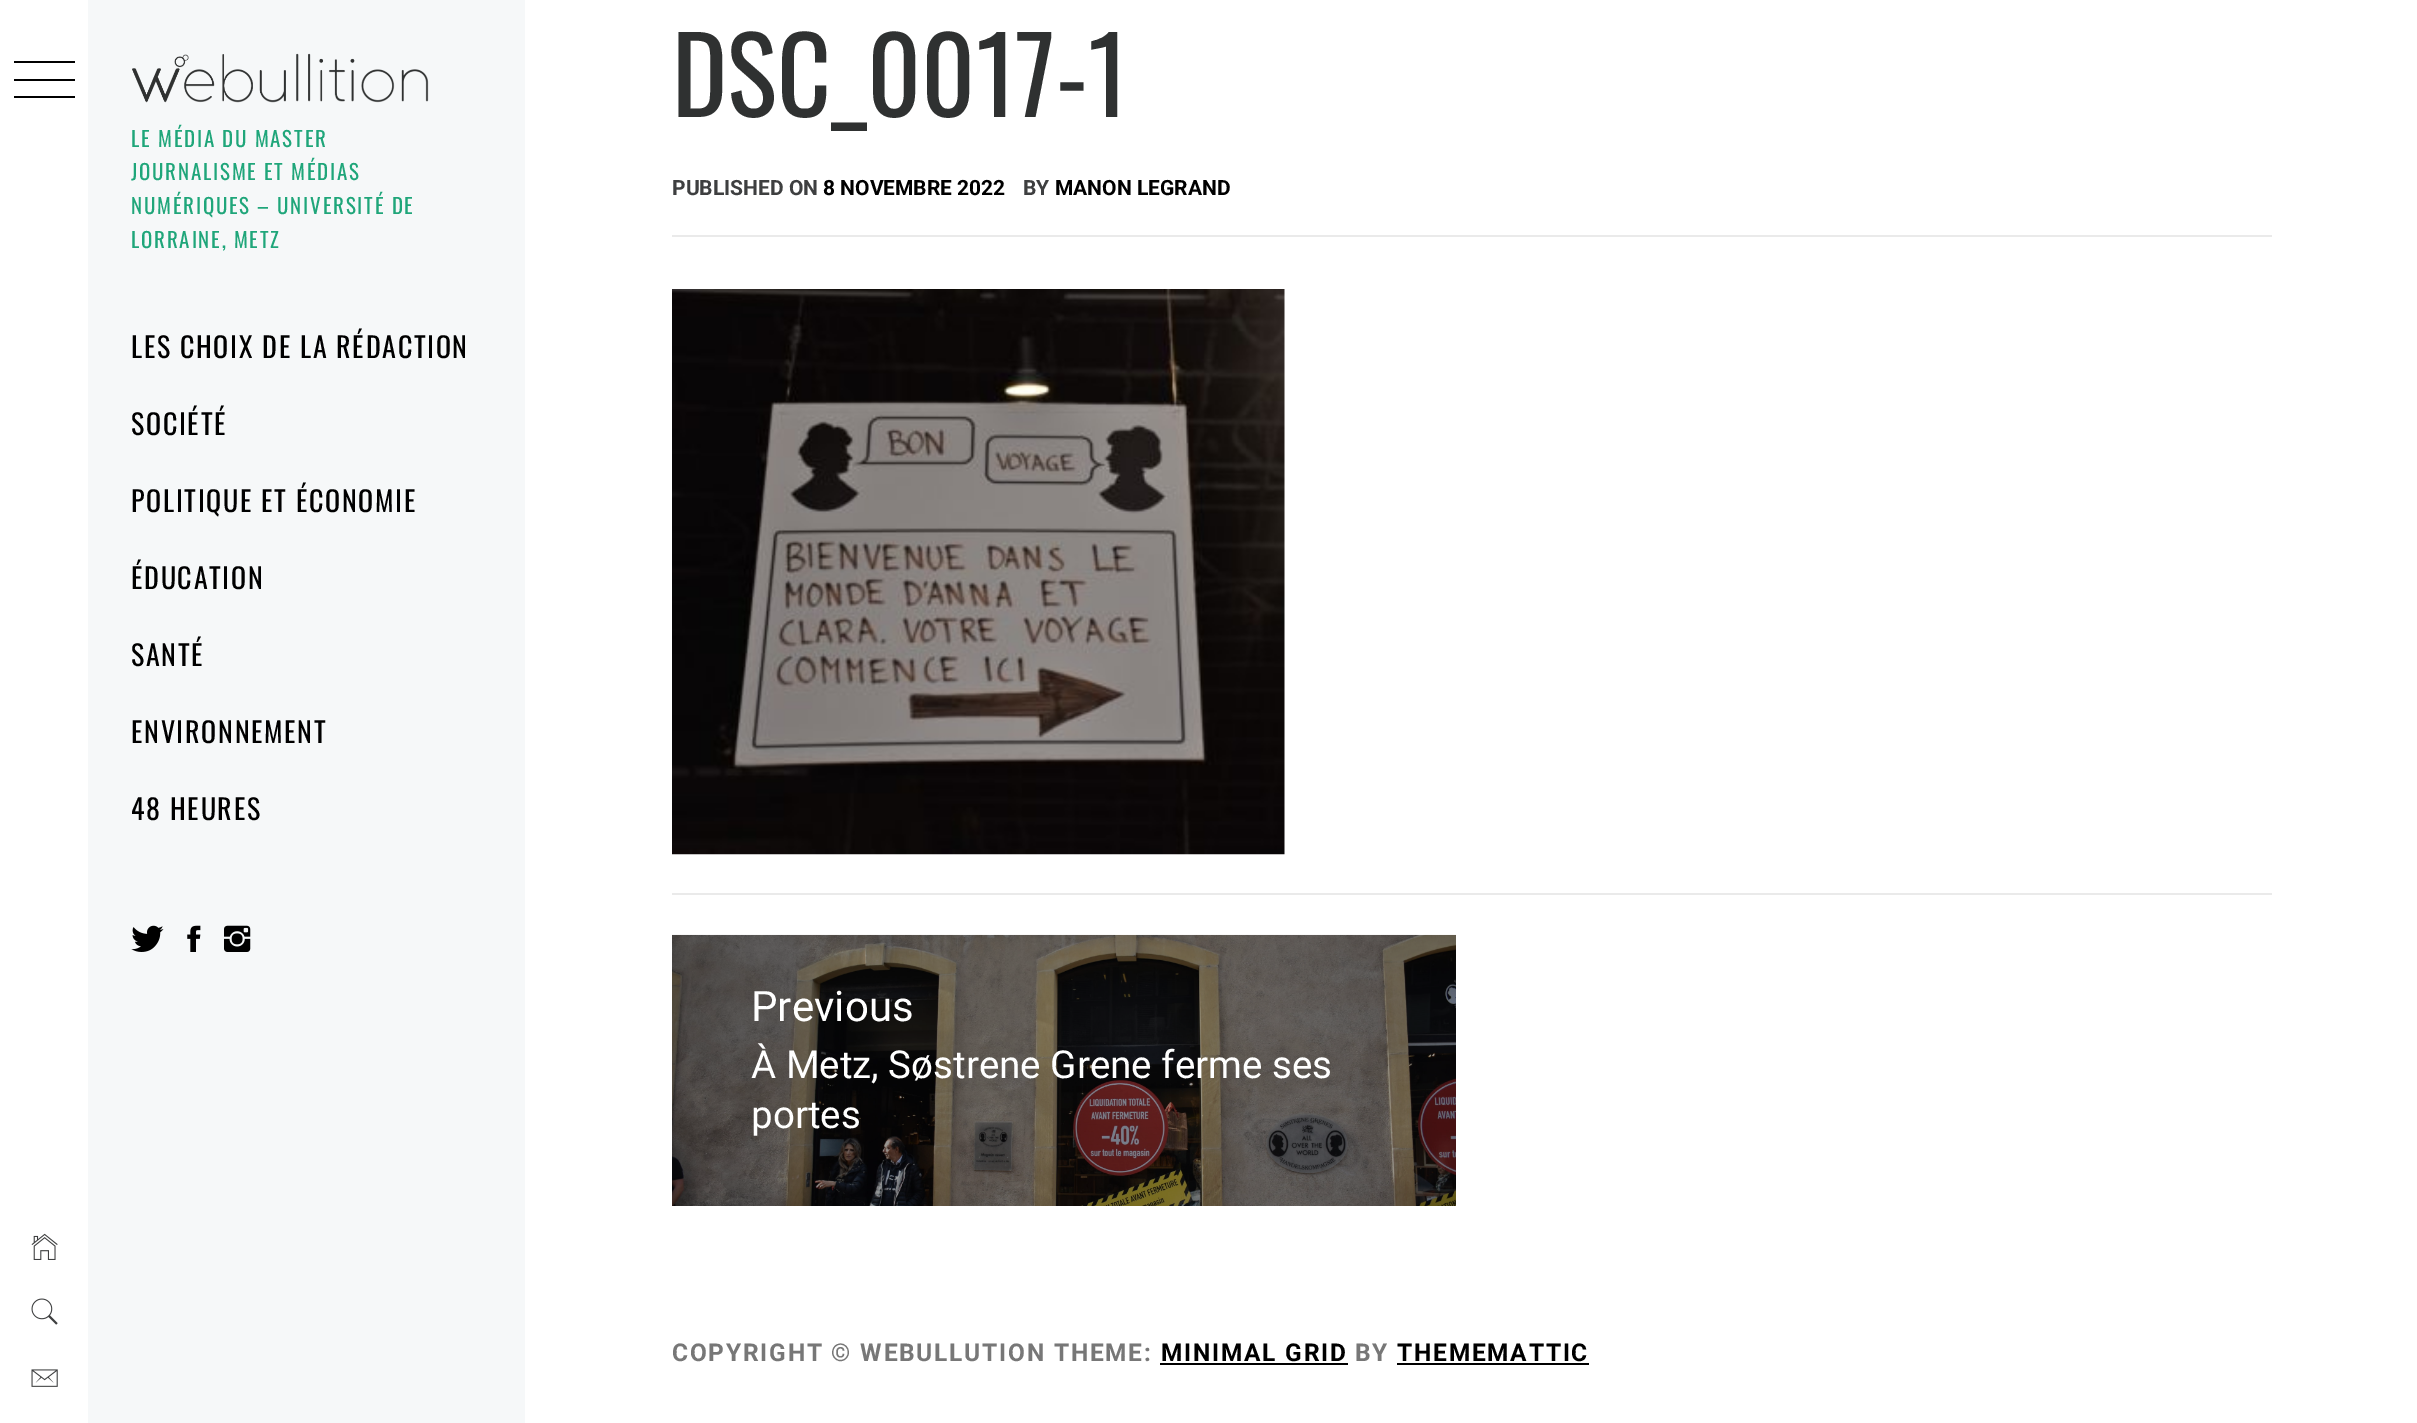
%!PS-Adobe-3.0
%%BoundingBox: 0 0 2417 1423
%%LanguageLevel: 3
%%Pages: 1
%%EndComments
%%BeginProlog
/setink { dup -16 bitshift 255 div exch dup -8 bitshift 255 and 255 div exch 255 and 255 div setrgbcolor } def
/usefont { [ exch dup neg 0 0 3 -1 roll 0 0 ] selectfont } def
/drawimage { 5 dict begin { /h /w /y /x /name } { exch def } forall
  gsave x y translate w h scale
  w h 8 [w 0 0 h 0 0] name (r) file false 3 colorimage grestore end } def
%%EndProlog
%%BeginSetup
<< /PageSize [2417 1423] >> setpagedevice
%%EndSetup
%%Page: 1 1
0 1423 translate 1 -1 scale
4 setmiterlimit
16#FFFFFF setink
0 0 2417 1423 rectfill
[
    [14 61 61 2 16#000000]
    [14 79 61 2 16#000000]
    [14 96 61 2 16#000000]
] { aload pop setink rectfill } forall
(img1.raw) 31 1233 27 27 drawimage
(img2.raw) 31 1298 27 27 drawimage
(img3.raw) 31 1369 27 18 drawimage
16#F6F8F9 setink
88 0 437 1423 rectfill
(img4.raw) 132 53 297 50 drawimage
/Oswald-Regular 21 usefont
16#1FA67A setink
131 147 moveto 1.75 0 (LE MÉDIA DU MASTER) ashow
131 180 moveto 1.75 0 (JOURNALISME ET MÉDIAS) ashow
131 214 moveto 1.75 0 (NUMÉRIQUES – UNIVERSITÉ DE) ashow
131 248 moveto 1.75 0 (LORRAINE, METZ) ashow
/Oswald-Regular 28 usefont
16#000000 setink
131 358 moveto 1.7 0 (LES CHOIX DE LA RÉDACTION) ashow
131 435 moveto 1.7 0 (SOCIÉTÉ) ashow
131 512 moveto 1.7 0 (POLITIQUE ET ÉCONOMIE) ashow
131 589 moveto 1.7 0 (ÉDUCATION) ashow
131 666 moveto 1.7 0 (SANTÉ) ashow
131 743 moveto 1.7 0 (ENVIRONNEMENT) ashow
131 820 moveto 1.7 0 (48 HEURES) ashow
(img5.raw) 131 925 33 27 drawimage
(img6.raw) 187 925 14 27 drawimage
(img7.raw) 224 925 27 27 drawimage
16#EAEAEA setink
672 235 1600 2 rectfill
/Oswald-Regular 105 usefont
16#2F3131 setink
672 117 moveto (DSC_0017-1) show
/Roboto-Bold 21 usefont
16#3E3F40 setink
672 195 moveto (PUBLISHED ON) show
16#000000 setink
823 195 moveto (8 NOVEMBRE 2022) show
16#3E3F40 setink
1023 195 moveto (BY) show
16#000000 setink
1055 195 moveto (MANON LEGRAND) show
(img8.raw) 672 289 613 566 drawimage
16#EAEAEA setink
672 893 1600 2 rectfill
(img9.raw) 672 934 784 272 drawimage
/Roboto-Regular 42 usefont
16#FFFFFF setink
751 1021 moveto (Previous) show
/Roboto-Regular 38.5 usefont
751 1078 moveto (À Metz, Søstrene Grene ferme ses) show
751 1128 moveto (portes) show
/Roboto-Bold 24.5 usefont
16#777777 setink
672 1361 moveto 1.75 0 (COPYRIGHT © WEBULLUTION THEME:) ashow
16#000000 setink
1161 1361 moveto 1.75 0 (MINIMAL GRID) ashow
1160 1363 188 2 rectfill
16#777777 setink
1355 1361 moveto 1.75 0 (BY) ashow
16#000000 setink
1397 1361 moveto 1.75 0 (THEMEMATTIC) ashow
1397 1363 192 2 rectfill
showpage
%%EOF
